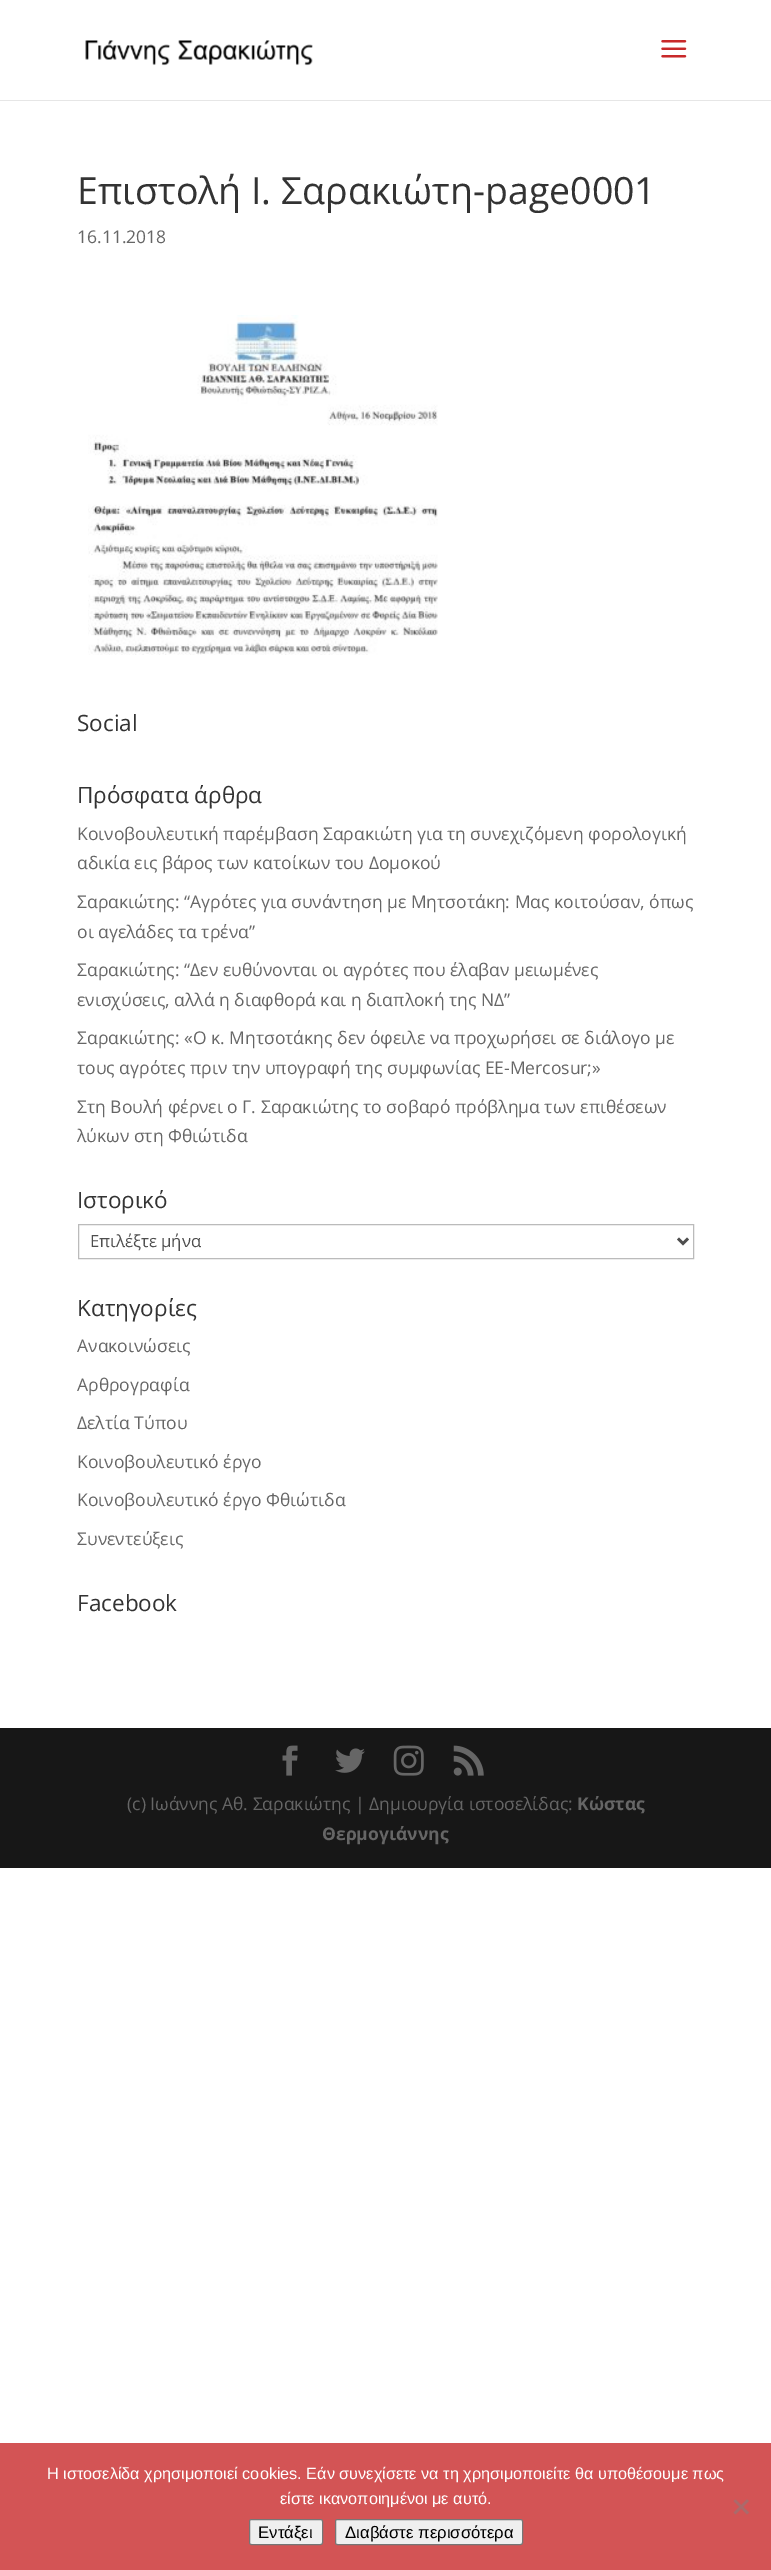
%!PS-Adobe-3.0
%%BoundingBox: 0 0 771 2570
%%LanguageLevel: 3
%%Pages: 1
%%EndComments
%%BeginProlog
/setink { dup -16 bitshift 255 div exch dup -8 bitshift 255 and 255 div exch 255 and 255 div setrgbcolor } def
/usefont { [ exch dup neg 0 0 3 -1 roll 0 0 ] selectfont } def
/rrect { 5 dict begin { /r /h /w /y /x } { exch def } forall
  x r add y moveto x w add y 2 copy h add r arct x w add y h add x 1 index r arct
  x y h add x y r arct x y 2 copy exch w add exch r arct closepath end } def
/drawimage { 5 dict begin { /h /w /y /x /name } { exch def } forall
  gsave x y translate w h scale
  w h 8 [w 0 0 h 0 0] name (r) file false 3 colorimage grestore end } def
%%EndProlog
%%BeginSetup
<< /PageSize [771 2570] >> setpagedevice
%%EndSetup
%%Page: 1 1
0 2570 translate 1 -1 scale
4 setmiterlimit
16#FFFFFF setink
0 0 771 2570 rectfill
16#E6E6E6 setink
0 100 771 1 rectfill
(img1.raw) 85 40 228 26 drawimage
(img2.raw) 661 40 26 18 drawimage
/OpenSans-Regular 37.5 usefont
16#333333 setink
77 204 moveto (Επιστολή Ι. Σαρακιώτη-page0001) show
/OpenSans-Regular 17.5 usefont
16#666666 setink
77 243 moveto (16.11.2018) show
(img3.raw) 88 315 350 340 drawimage
/OpenSans-Regular 22.5 usefont
16#333333 setink
77 731 moveto (Social) show
77 803 moveto (Πρόσφατα άρθρα) show
/OpenSans-Regular 17.5 usefont
16#666666 setink
[
    [(Κοινοβουλευτική παρέμβαση Σαρακιώτη για τη συνεχιζόμενη φορολογική) 77 840]
    [(αδικία εις βάρος των κατοίκων του Δομοκού) 77 869]
    [(Σαρακιώτης: “Αγρότες για συνάντηση με Μητσοτάκη: Μας κοιτούσαν, όπως) 77 908]
    [(οι αγελάδες τα τρένα”) 77 938]
    [(Σαρακιώτης: “Δεν ευθύνονται οι αγρότες που έλαβαν μειωμένες) 77 976]
    [(ενισχύσεις, αλλά η διαφθορά και η διαπλοκή της ΝΔ”) 77 1006]
    [(Σαρακιώτης: «Ο κ. Μητσοτάκης δεν όφειλε να προχωρήσει σε διάλογο με) 77 1044]
    [(τους αγρότες πριν την υπογραφή της συμφωνίας ΕΕ-Mercosur;») 77 1074]
    [(Στη Βουλή φέρνει ο Γ. Σαρακιώτης το σοβαρό πρόβλημα των επιθέσεων) 77 1113]
    [(λύκων στη Φθιώτιδα) 77 1142]
] { aload pop moveto show } forall
/OpenSans-Regular 22.5 usefont
16#333333 setink
77 1208 moveto (Ιστορικό) show
16#BBBBBB setink
78.5 1224.5 615 34 rectstroke
16#4E4E4E setink
2.5 setlinewidth
678 1238.5 moveto 683 1243.5 lineto 688 1238.5 lineto stroke
/OpenSans-Regular 16.75 usefont
90 1247 moveto (Επιλέξτε μήνα) show
/OpenSans-Regular 22.5 usefont
16#333333 setink
77 1316 moveto (Kατηγορίες) show
/OpenSans-Regular 17.5 usefont
16#666666 setink
[
    [(Ανακοινώσεις) 77 1352]
    [(Αρθρογραφία) 77 1391]
    [(Δελτία Τύπου) 77 1429]
    [(Κοινοβουλευτικό έργο) 77 1468]
    [(Κοινοβουλευτικό έργο Φθιώτιδα) 77 1506]
    [(Συνεντεύξεις) 77 1545]
] { aload pop moveto show } forall
/OpenSans-Regular 22.5 usefont
16#333333 setink
77 1611 moveto (Facebook) show
16#171717 setink
0 1728 771 140 rectfill
(img4.raw) 282 1745 16 31 drawimage
(img5.raw) 335 1748 30 25 drawimage
(img6.raw) 393 1745 31 31 drawimage
(img7.raw) 453 1745 31 31 drawimage
/OpenSans-Regular 17.5 usefont
16#666666 setink
127 1810 moveto (\(c\) Ιωάννης Αθ. Σαρακιώτης | Δημιουργία ιστοσελίδας:) show
/OpenSans-Bold 17.5 usefont
577 1810 moveto (Κώστας) show
322 1840 moveto (Θερμογιάννης) show
16#D35455 setink
0 2443 771 127 rectfill
/LiberationSans-Regular 16.25 usefont
16#FFFFFF setink
47 2479 moveto (Η ιστοσελίδα χρησιμοποιεί cookies. Εάν συνεχίσετε να τη χρησιμοποιείτε θα υποθέσουμε πως) show
280 2504 moveto (είστε ικανοποιημένοι με αυτό.) show
16#AA6A6B setink
747 2499.5 moveto 749 2501 lineto 735.5 2514.5 lineto 733.5 2512.5 lineto closepath fill
733.5 2501 moveto 735.5 2499.5 lineto 749 2512.5 lineto 747 2514.5 lineto closepath fill
16#EFEFEF setink
249.5 2519.5 73 25 2 rrect gsave fill grestore
16#767676 setink
1 setlinewidth
stroke
/LiberationSans-Regular 16.75 usefont
16#000000 setink
258 2538 moveto (Εντάξει) show
16#EFEFEF setink
335.5 2519.5 187 25 2 rrect gsave fill grestore
16#767676 setink
stroke
16#000000 setink
345 2538 moveto (Διαβάστε περισσότερα) show
showpage
%%EOF
